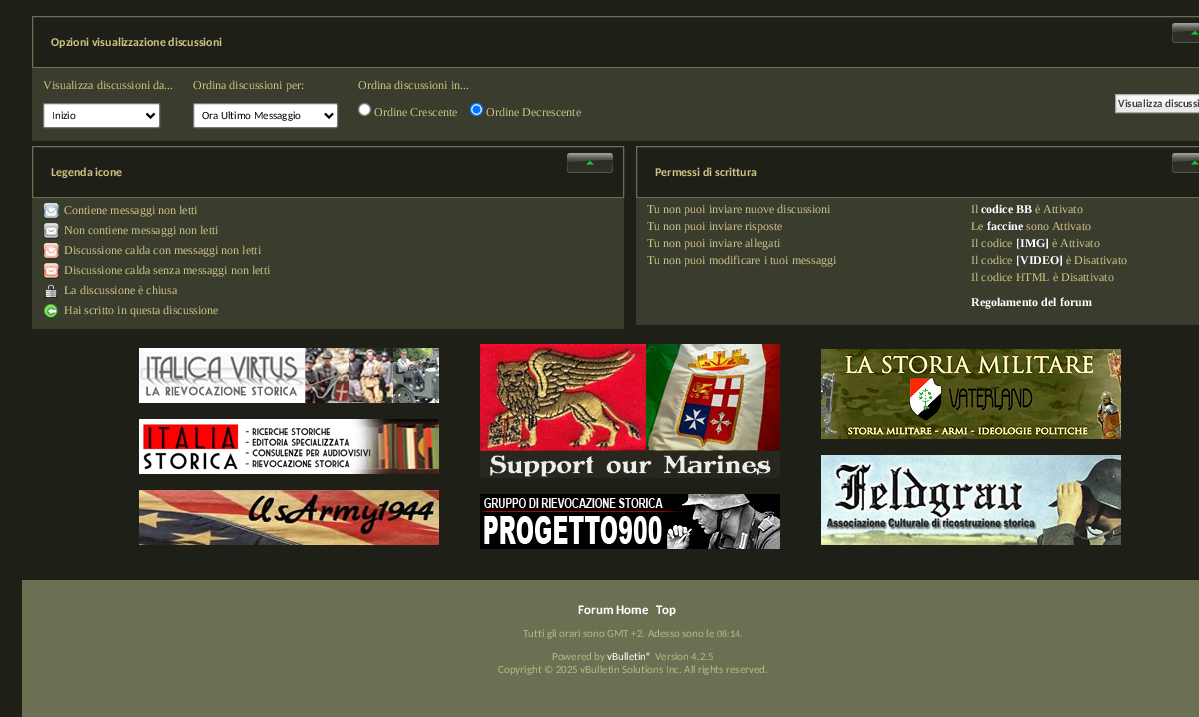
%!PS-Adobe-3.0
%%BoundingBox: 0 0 1199 717
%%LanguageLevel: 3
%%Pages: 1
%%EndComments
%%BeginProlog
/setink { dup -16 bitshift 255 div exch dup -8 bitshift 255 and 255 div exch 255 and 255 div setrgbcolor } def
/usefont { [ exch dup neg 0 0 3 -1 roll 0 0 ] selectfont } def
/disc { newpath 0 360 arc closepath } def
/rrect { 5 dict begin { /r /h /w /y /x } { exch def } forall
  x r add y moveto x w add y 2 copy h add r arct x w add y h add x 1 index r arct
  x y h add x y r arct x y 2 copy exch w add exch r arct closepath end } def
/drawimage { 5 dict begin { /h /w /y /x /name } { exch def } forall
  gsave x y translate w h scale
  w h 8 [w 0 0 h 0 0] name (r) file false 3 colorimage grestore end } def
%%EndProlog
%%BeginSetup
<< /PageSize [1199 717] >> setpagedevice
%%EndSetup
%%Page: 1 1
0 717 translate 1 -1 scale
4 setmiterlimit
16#1E1F16 setink
0 0 1199 717 rectfill
16#6C7053 setink
32.5 16.5 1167 51 rectstroke
/Carlito-Bold 12 usefont
16#CBC283 setink
51 46 moveto (Opzioni visualizzazione discussioni) show
(img1.raw) 1172 23 27 20 drawimage
16#3A3C2E setink
32 68 1167 73 rectfill
/LiberationSerif-Regular 12 usefont
16#CBC283 setink
43 89 moveto (Visualizza discussioni da...) show
16#FFFFFF setink
43.5 103.5 116 24 1.5 rrect gsave fill grestore
16#767676 setink
stroke
16#000000 setink
2 setlinewidth
146.5 113.5 moveto 150.5 117.5 lineto 154.5 113.5 lineto stroke
/Carlito-Regular 11 usefont
52 119 moveto (Inizio) show
/LiberationSerif-Regular 12 usefont
16#CBC283 setink
193 89 moveto (Ordina discussioni per:) show
16#FFFFFF setink
193.5 103.5 144 24 1.5 rrect gsave fill grestore
16#767676 setink
1 setlinewidth
stroke
16#000000 setink
2 setlinewidth
325 113.5 moveto 329 117.5 lineto 333 113.5 lineto stroke
/Carlito-Regular 11 usefont
202 119 moveto (Ora Ultimo Messaggio) show
/LiberationSerif-Regular 12 usefont
16#CBC283 setink
358 89 moveto (Ordina discussioni in...) show
16#FFFFFF setink
364.5 109.5 6 disc gsave fill grestore
16#767676 setink
1 setlinewidth
stroke
16#CBC283 setink
374 116 moveto (Ordine Crescente) show
16#FFFFFF setink
476.5 109.5 6 disc gsave fill grestore
16#0075FF setink
stroke
476.5 109.5 4 disc fill
16#CBC283 setink
486 116 moveto (Ordine Decrescente) show
16#E9E9E9 setink
1116 95 83 17 rectfill
(img2.raw) 1116 95 83 12 drawimage
16#A8A8A8 setink
1115.5 94.5 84 18 rectstroke
/Carlito-Bold 11 usefont
16#424242 setink
1118 107 moveto (Visualizza discussi) show
16#6C7053 setink
32.5 146.5 591 51 rectstroke
/Carlito-Bold 12 usefont
16#CBC283 setink
51 176 moveto (Legenda icone) show
(img3.raw) 567 153 46 20 drawimage
16#3A3C2E setink
32 198 592 131 rectfill
(img4.raw) 43 203 16 16 drawimage
/LiberationSerif-Regular 12 usefont
16#CBC283 setink
64 214 moveto (Contiene messaggi non letti) show
(img5.raw) 43 223 16 16 drawimage
64 234 moveto (Non contiene messaggi non letti) show
(img6.raw) 43 243 16 16 drawimage
64 254 moveto (Discussione calda con messaggi non letti) show
(img7.raw) 43 263 16 16 drawimage
64 274 moveto (Discussione calda senza messaggi non letti) show
(img8.raw) 43 284 16 14 drawimage
64 294 moveto (La discussione è chiusa) show
(img9.raw) 44 304 14 14 drawimage
64 314 moveto (Hai scritto in questa discussione) show
16#6C7053 setink
636.5 146.5 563 51 rectstroke
/Carlito-Bold 12 usefont
16#CBC283 setink
655 176 moveto (Permessi di scrittura) show
(img1.raw) 1172 153 27 20 drawimage
16#3A3C2E setink
636 198 563 127 rectfill
/LiberationSerif-Regular 12 usefont
16#CBC283 setink
[
    [(Tu non puoi inviare nuove discussioni) 647 213]
    [(Tu non puoi inviare risposte) 647 230]
    [(Tu non puoi inviare allegati) 647 247]
    [(Tu non puoi modificare i tuoi messaggi) 647 264]
    [(Il) 971 213]
] { aload pop moveto show } forall
/LiberationSerif-Bold 12 usefont
16#FFFFFF setink
981 213 moveto (codice BB) show
/LiberationSerif-Regular 12 usefont
16#CBC283 setink
1035 213 moveto (è Attivato) show
971 230 moveto (Le) show
/LiberationSerif-Bold 12 usefont
16#FFFFFF setink
987 230 moveto (faccine) show
/LiberationSerif-Regular 12 usefont
16#CBC283 setink
1026 230 moveto (sono Attivato) show
971 247 moveto (Il codice) show
/LiberationSerif-Bold 12 usefont
16#FFFFFF setink
1016 247 moveto ([IMG]) show
/LiberationSerif-Regular 12 usefont
16#CBC283 setink
1052 247 moveto (è Attivato) show
971 264 moveto (Il codice) show
/LiberationSerif-Bold 12 usefont
16#FFFFFF setink
1016 264 moveto ([VIDEO]) show
/LiberationSerif-Regular 12 usefont
16#CBC283 setink
1066 264 moveto (è Disattivato) show
971 281 moveto (Il codice HTML è Disattivato) show
/LiberationSerif-Bold 12 usefont
16#FFFFFF setink
971 306 moveto (Regolamento del forum) show
(img10.raw) 139 348 300 55 drawimage
(img11.raw) 139 419 300 55 drawimage
(img12.raw) 139 490 300 55 drawimage
(img13.raw) 480 344 300 134 drawimage
(img14.raw) 480 494 300 55 drawimage
(img15.raw) 821 349 300 90 drawimage
(img16.raw) 821 455 300 90 drawimage
16#6C7053 setink
22 580 1177 137 rectfill
/Carlito-Bold 13 usefont
16#FFFFFF setink
578 614 moveto (Forum Home) show
656 614 moveto (Top) show
/Carlito-Regular 11 usefont
16#B8B883 setink
523 637 moveto (Tutti gli orari sono GMT +2. Adesso sono le) show
/Carlito-Regular 10 usefont
717 637 moveto (08:14) show
/Carlito-Regular 11 usefont
740 637 moveto (.) show
552 660 moveto (Powered by) show
16#FFFFFF setink
607 660 moveto (vBulletin®) show
16#B8B883 setink
655 660 moveto (Version 4.2.5) show
498 673 moveto (Copyright © 2025 vBulletin Solutions Inc. All rights reserved.) show
showpage
%%EOF
